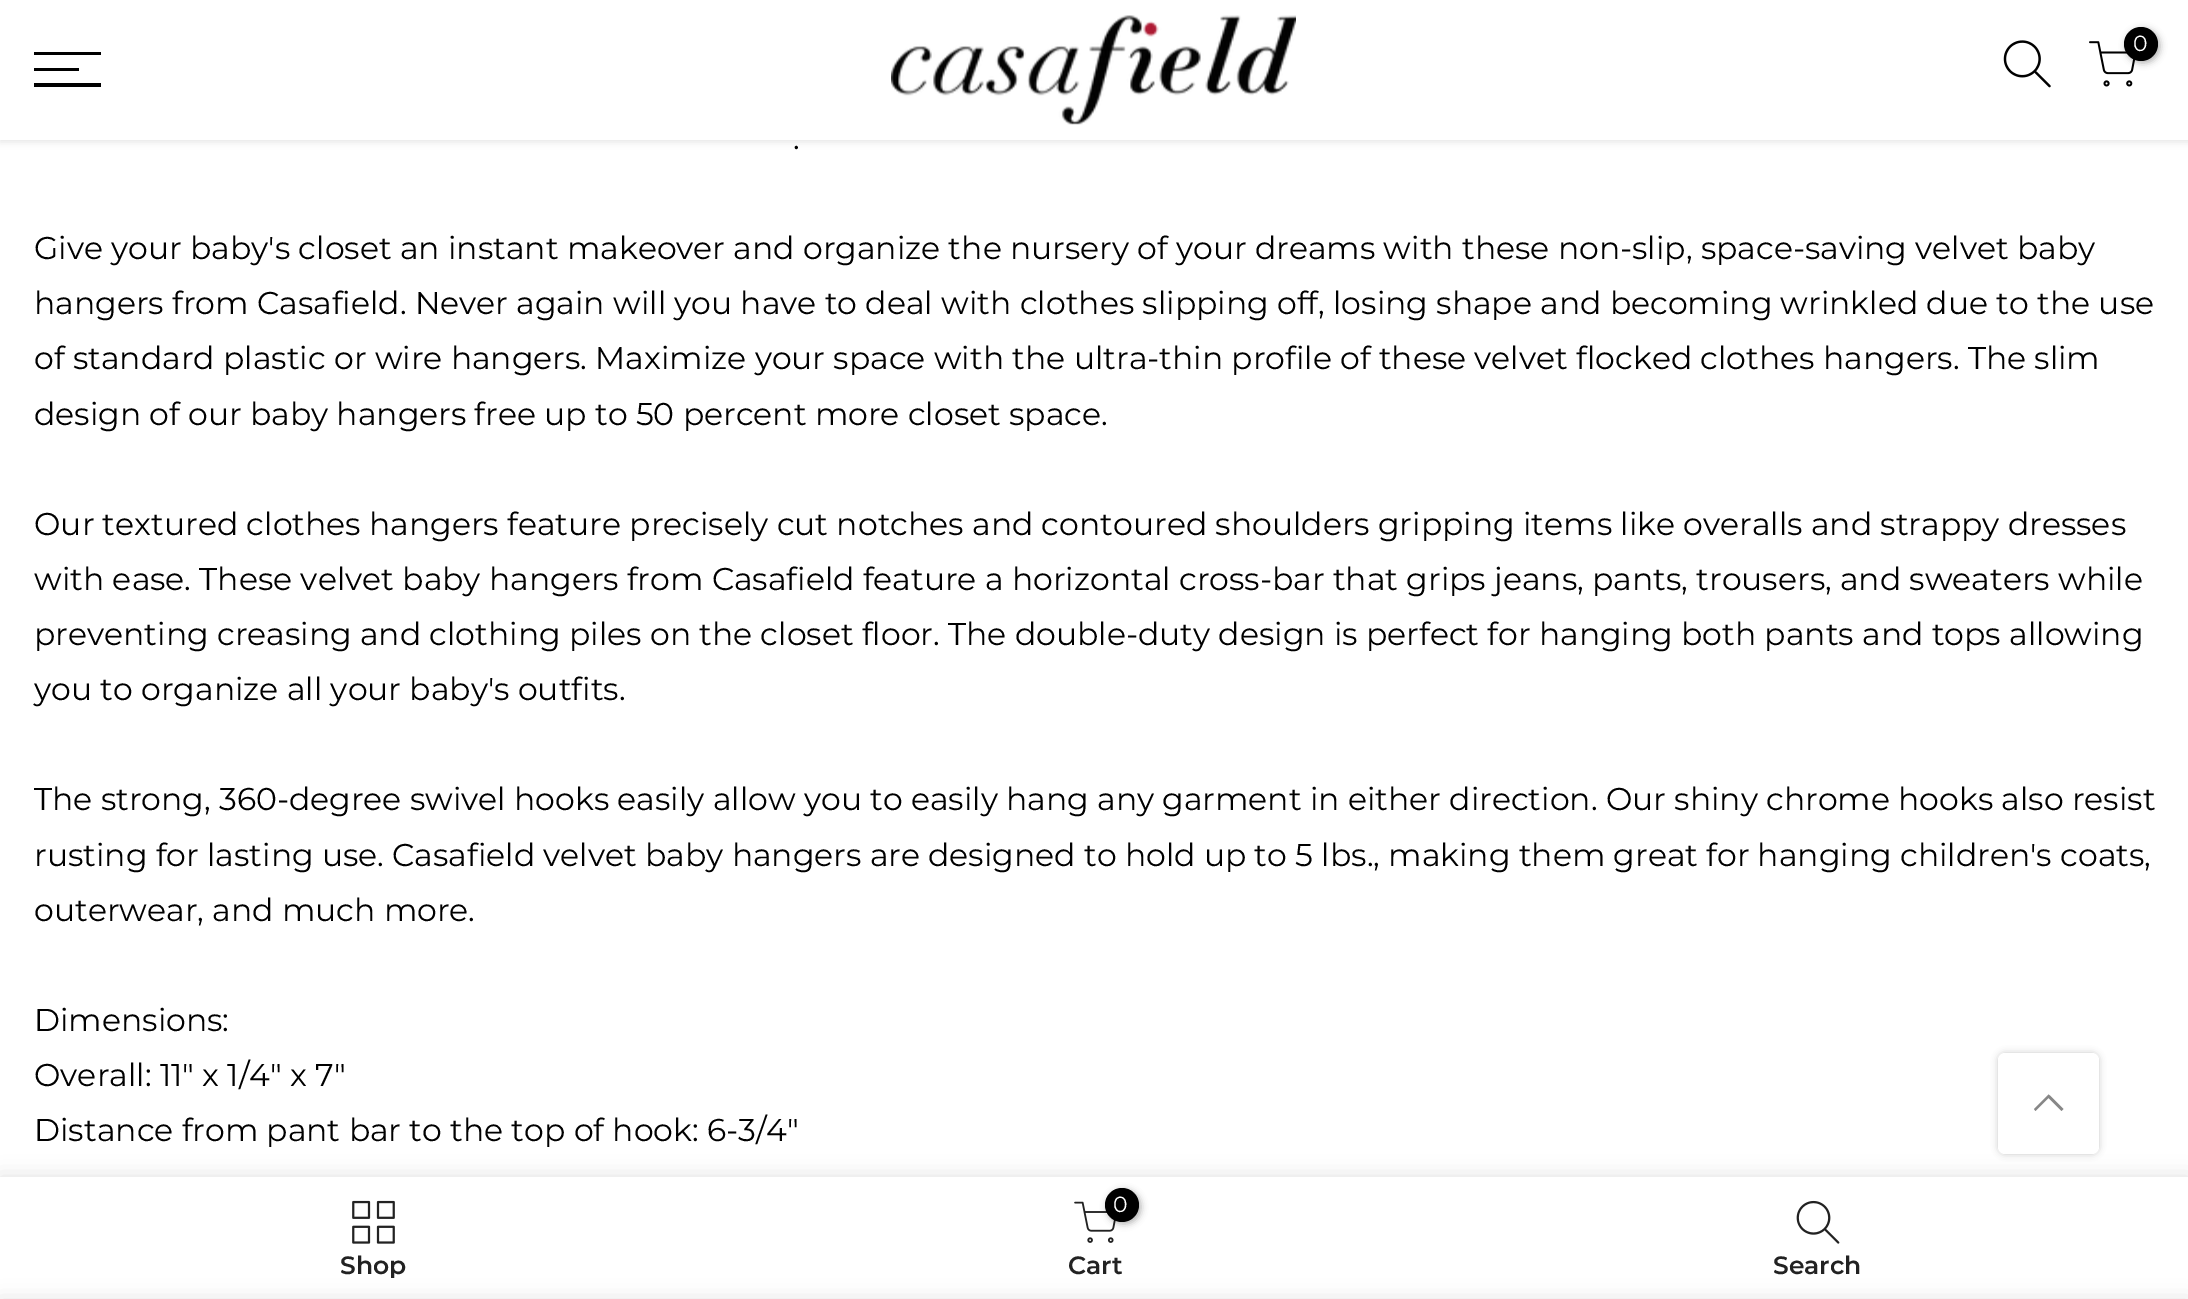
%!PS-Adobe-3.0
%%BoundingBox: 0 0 2188 1299
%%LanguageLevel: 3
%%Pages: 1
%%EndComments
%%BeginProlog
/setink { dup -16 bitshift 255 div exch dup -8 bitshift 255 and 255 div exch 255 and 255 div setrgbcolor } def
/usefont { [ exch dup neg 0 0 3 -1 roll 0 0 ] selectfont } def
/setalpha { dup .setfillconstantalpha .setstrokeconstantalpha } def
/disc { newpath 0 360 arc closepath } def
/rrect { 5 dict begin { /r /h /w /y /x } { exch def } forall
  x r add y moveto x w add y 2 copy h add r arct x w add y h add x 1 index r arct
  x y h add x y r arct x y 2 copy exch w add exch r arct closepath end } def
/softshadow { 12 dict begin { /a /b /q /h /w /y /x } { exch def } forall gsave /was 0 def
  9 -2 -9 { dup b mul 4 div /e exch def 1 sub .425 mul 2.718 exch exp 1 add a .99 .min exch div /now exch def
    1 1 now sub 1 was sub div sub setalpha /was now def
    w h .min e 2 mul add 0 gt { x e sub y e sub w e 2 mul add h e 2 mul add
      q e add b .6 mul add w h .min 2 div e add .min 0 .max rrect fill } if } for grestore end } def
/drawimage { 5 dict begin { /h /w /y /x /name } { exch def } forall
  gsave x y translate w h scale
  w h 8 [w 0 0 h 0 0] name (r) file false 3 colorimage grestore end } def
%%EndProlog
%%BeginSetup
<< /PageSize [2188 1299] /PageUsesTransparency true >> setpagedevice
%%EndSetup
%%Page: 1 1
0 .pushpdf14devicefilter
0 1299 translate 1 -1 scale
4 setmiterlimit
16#FFFFFF setink
0 0 2188 1299 rectfill
16#000000 setink
0 2 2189 140 0 3.5 0.1 softshadow
16#FFFFFF setink
0 0 2188 140 rectfill
(img1.raw) 891 15 405 110 drawimage
(img2.raw) 2003 40 48 48 drawimage
(img3.raw) 2089 41 47 46 drawimage
16#000000 setink
2126 29 34 34 17 3.5 0.3 softshadow
2141 44 17 disc fill
/Montserrat-Regular 22 usefont
16#FFFFFF setink
2133 51 moveto (0) show
[
    [34 52 67 3 16#000000]
    [34 68 45 3 16#000000]
    [34 83 67 4 16#000000]
] { aload pop setink rectfill } forall
/Montserrat-Regular 31.5 usefont
[
    [(.) 793 149]
    [(Give your baby's closet an instant makeover and organize the nursery of your dreams with these non-slip, space-saving velvet baby) 34 259]
    [(hangers from Casafield. Never again will you have to deal with clothes slipping off, losing shape and becoming wrinkled due to the use) 34 314]
    [(of standard plastic or wire hangers. Maximize your space with the ultra-thin profile of these velvet flocked clothes hangers. The slim) 34 369]
    [(design of our baby hangers free up to 50 percent more closet space.) 34 425]
    [(Our textured clothes hangers feature precisely cut notches and contoured shoulders gripping items like overalls and strappy dresses) 34 535]
    [(with ease. These velvet baby hangers from Casafield feature a horizontal cross-bar that grips jeans, pants, trousers, and sweaters while) 34 590]
    [(preventing creasing and clothing piles on the closet floor. The double-duty design is perfect for hanging both pants and tops allowing) 34 645]
    [(you to organize all your baby's outfits.) 34 700]
    [(The strong, 360-degree swivel hooks easily allow you to easily hang any garment in either direction. Our shiny chrome hooks also resist) 34 810]
    [(rusting for lasting use. Casafield velvet baby hangers are designed to hold up to 5 lbs., making them great for hanging children's coats,) 34 866]
    [(outerwear, and much more.) 34 921]
    [(Dimensions:) 34 1031]
    [(Overall: 11" x 1/4" x 7") 34 1086]
    [(Distance from pant bar to the top of hook: 6-3/4") 34 1141]
] { aload pop moveto show } forall
1998 1053 101 101 7 3.5 0.2 softshadow
16#FFFFFF setink
1998 1053 101 101 7 rrect fill
16#878787 setink
2050.5 1096 moveto 2048.5 1094.5 lineto 2034 1109 lineto 2035.5 1111 lineto 2048.5 1098 lineto 2061.5 1111 lineto 2063.5 1109 lineto closepath fill
16#000000 setink
0 1177 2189 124 0 10 0.12 softshadow
16#FFFFFF setink
0 1177 2188 122 rectfill
(img4.raw) 352 1200 43 44 drawimage
gsave
34 1253 677 25 rectclip
/Montserrat-SemiBold 25 usefont
16#222222 setink
340 1274 moveto (Shop) show
grestore
(img5.raw) 1074 1201 42 42 drawimage
16#000000 setink
1107 1190 34 34 17 3.5 0.3 softshadow
1122 1205 17 disc fill
/Montserrat-Regular 22 usefont
16#FFFFFF setink
1113 1212 moveto (0) show
/Montserrat-SemiBold 25 usefont
16#222222 setink
1068 1274 moveto (Cart) show
(img6.raw) 1796 1200 44 44 drawimage
1773 1274 moveto (Search) show
16#000000 setink
0 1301 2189 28 0 10 0.14 softshadow
.poppdf14devicefilter showpage
%%EOF
